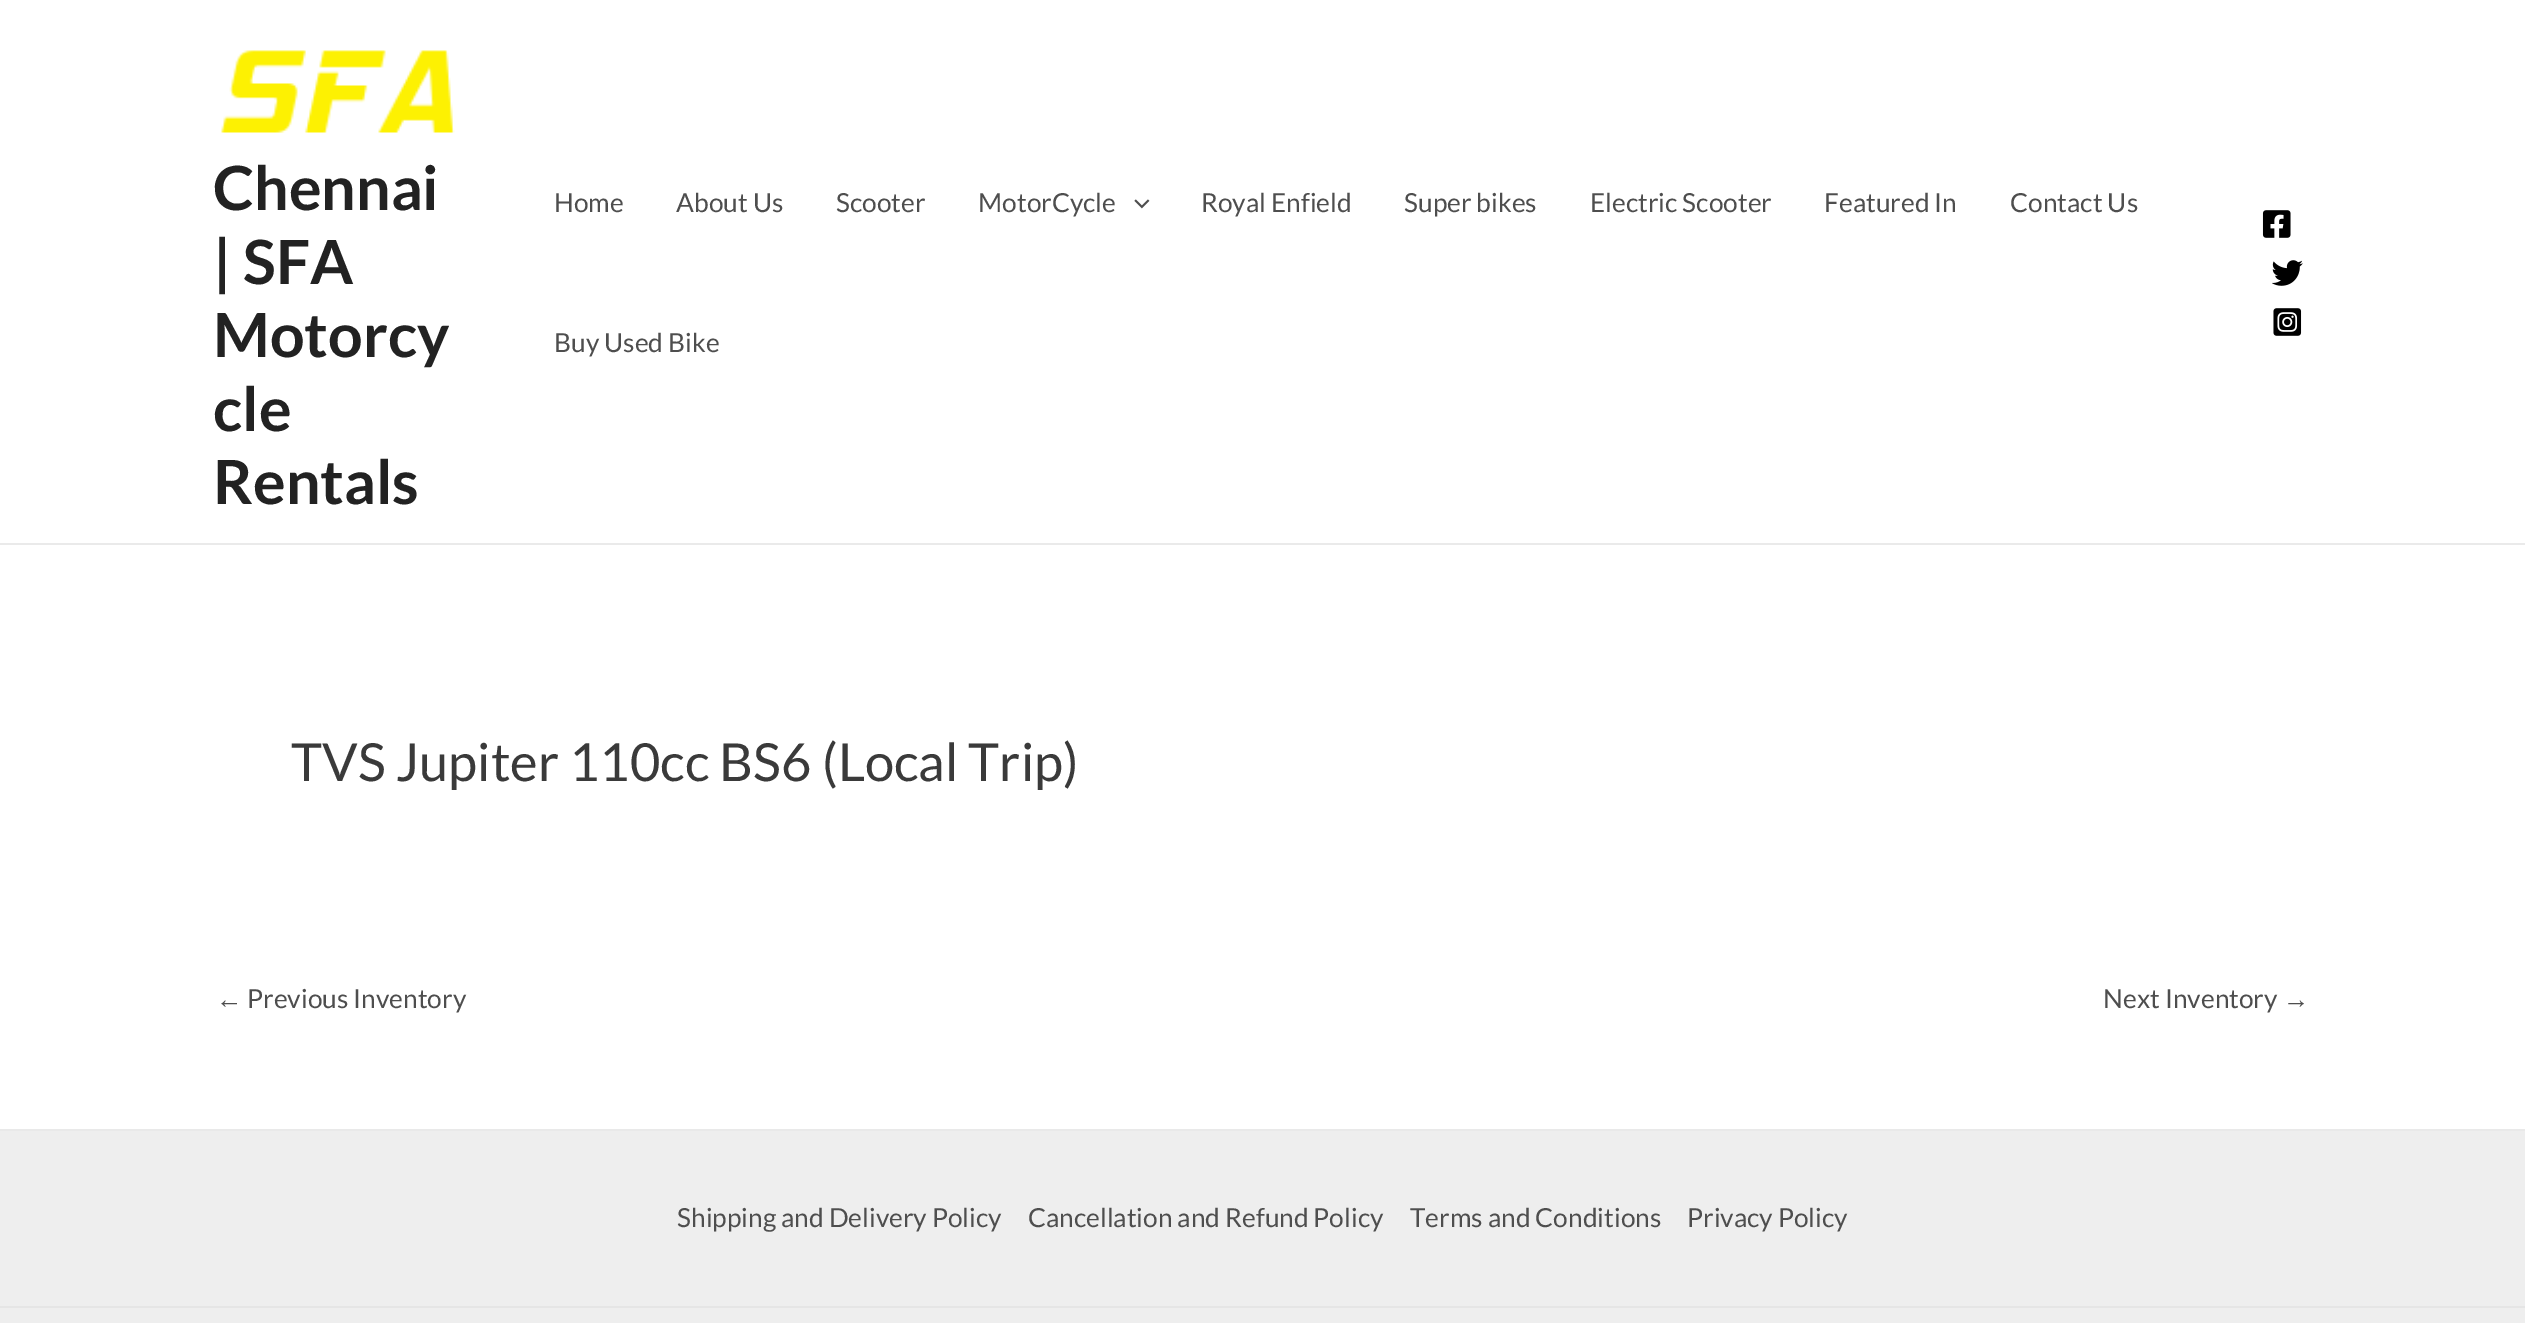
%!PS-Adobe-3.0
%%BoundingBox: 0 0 2525 1323
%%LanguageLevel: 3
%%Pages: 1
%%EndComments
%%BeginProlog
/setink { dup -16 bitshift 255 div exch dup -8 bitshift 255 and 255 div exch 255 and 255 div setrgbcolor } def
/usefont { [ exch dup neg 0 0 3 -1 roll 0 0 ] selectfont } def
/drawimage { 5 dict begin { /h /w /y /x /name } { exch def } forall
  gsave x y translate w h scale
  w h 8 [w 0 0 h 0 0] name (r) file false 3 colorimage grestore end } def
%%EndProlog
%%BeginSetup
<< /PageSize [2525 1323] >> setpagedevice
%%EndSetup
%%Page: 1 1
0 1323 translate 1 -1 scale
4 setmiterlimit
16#FFFFFF setink
0 0 2525 1323 rectfill
16#EAEAEA setink
0 543 2525 2 rectfill
(img1.raw) 221 50 234 83 drawimage
/Lato-Bold 61 usefont
16#222222 setink
[
    [(Chennai) 213 210]
    [(| SFA) 213 284]
    [(Motorcy) 213 357]
    [(cle) 213 431]
    [(Rentals) 213 504]
] { aload pop moveto show } forall
/Lato-Regular 26.25 usefont
16#4E4E4E setink
[
    [(Home) 554 212]
    [(About Us) 676 212]
    [(Scooter) 836 212]
    [(MotorCycle) 978 212]
] { aload pop moveto show } forall
(img2.raw) 1134 199 16 10 drawimage
[
    [(Royal Enfield) 1201 212]
    [(Super bikes) 1404 212]
    [(Electric Scooter) 1590 212]
    [(Featured In) 1824 212]
    [(Contact Us) 2010 212]
    [(Buy Used Bike) 554 352]
] { aload pop moveto show } forall
(img3.raw) 2262 210 29 28 drawimage
(img4.raw) 2272 260 31 26 drawimage
(img5.raw) 2273 308 29 28 drawimage
/Lato-Regular 52.5 usefont
16#3A3A3A setink
291 781 moveto (TVS Jupiter 110cc BS6 \(Local Trip\)) show
/LiberationSans-Regular 26.25 usefont
16#4E4E4E setink
216 1008 moveto (←) show
/Lato-Regular 26.25 usefont
247 1008 moveto (Previous Inventory) show
2103 1008 moveto (Next Inventory) show
/LiberationSans-Regular 26.25 usefont
2283 1008 moveto (→) show
16#E9E9E9 setink
0 1129 2525 2 rectfill
16#EEEEEE setink
0 1131 2525 175 rectfill
/Lato-Regular 26.25 usefont
16#4E4E4E setink
[
    [(Shipping and Delivery Policy) 677 1227]
    [(Cancellation and Refund Policy) 1028 1227]
    [(Terms and Conditions) 1410 1227]
    [(Privacy Policy) 1687 1227]
] { aload pop moveto show } forall
16#EEEEEE setink
0 1308 2525 15 rectfill
16#E5E5E5 setink
0 1306 2525 2 rectfill
showpage
%%EOF
